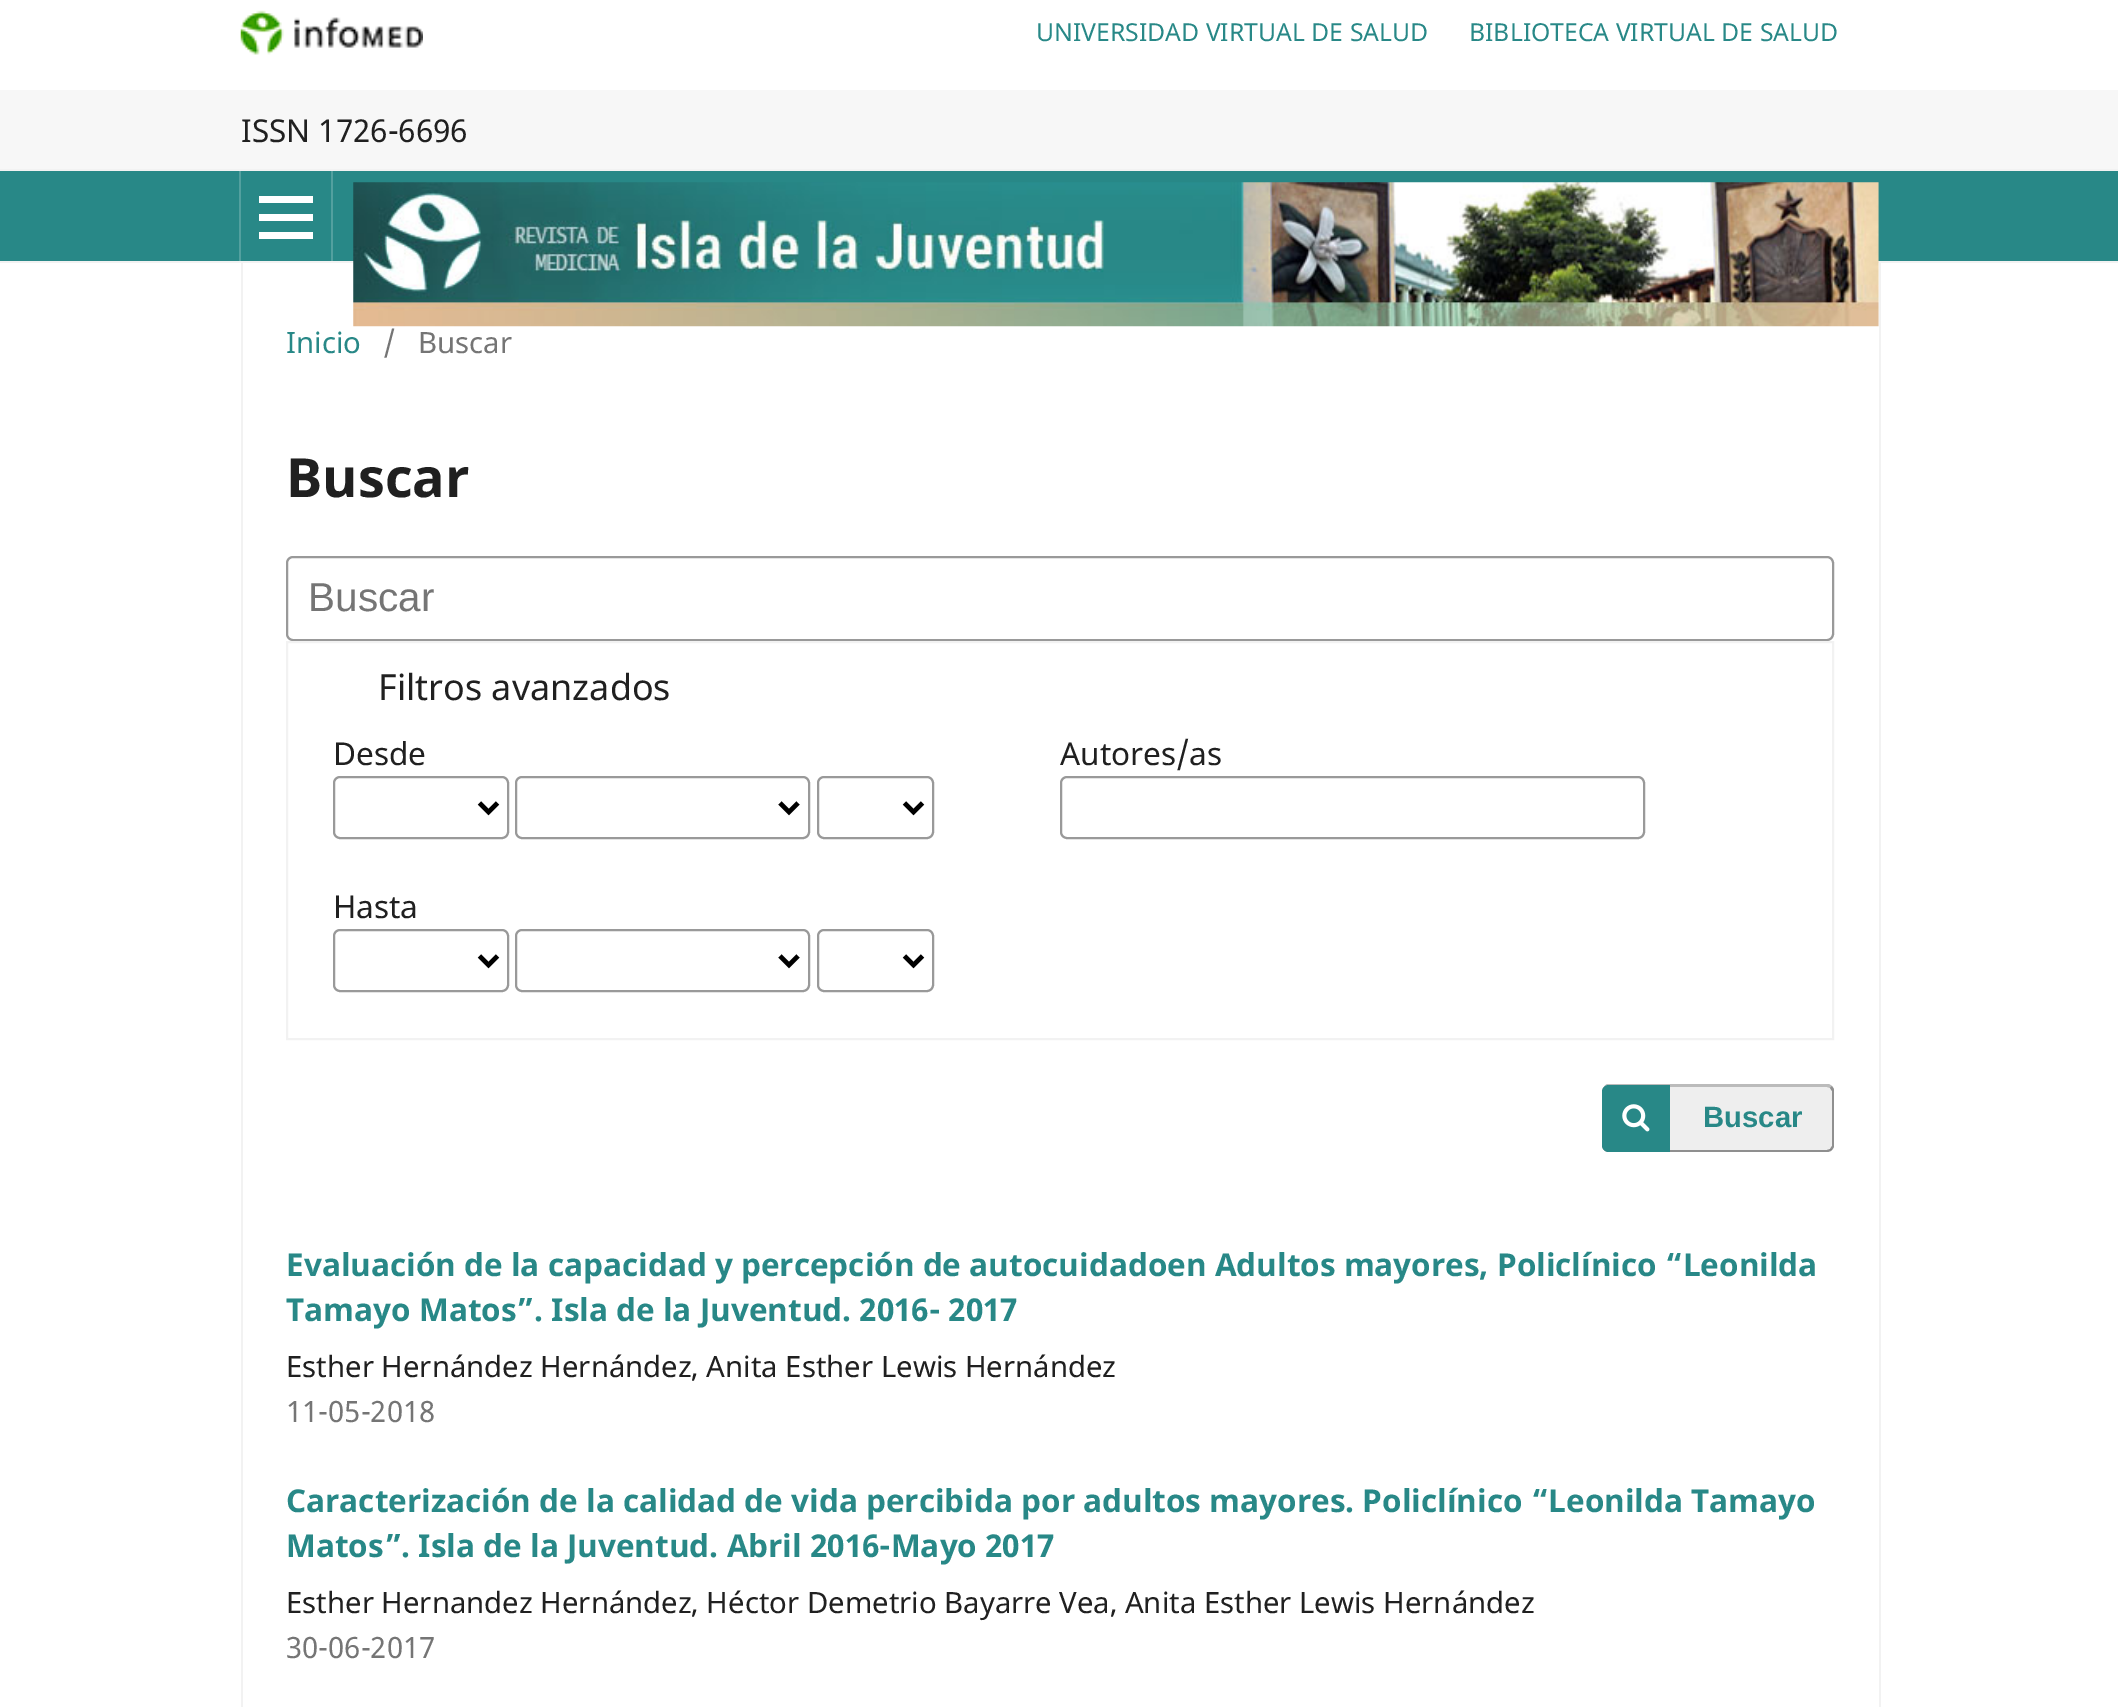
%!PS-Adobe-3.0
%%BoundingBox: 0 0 2118 1707
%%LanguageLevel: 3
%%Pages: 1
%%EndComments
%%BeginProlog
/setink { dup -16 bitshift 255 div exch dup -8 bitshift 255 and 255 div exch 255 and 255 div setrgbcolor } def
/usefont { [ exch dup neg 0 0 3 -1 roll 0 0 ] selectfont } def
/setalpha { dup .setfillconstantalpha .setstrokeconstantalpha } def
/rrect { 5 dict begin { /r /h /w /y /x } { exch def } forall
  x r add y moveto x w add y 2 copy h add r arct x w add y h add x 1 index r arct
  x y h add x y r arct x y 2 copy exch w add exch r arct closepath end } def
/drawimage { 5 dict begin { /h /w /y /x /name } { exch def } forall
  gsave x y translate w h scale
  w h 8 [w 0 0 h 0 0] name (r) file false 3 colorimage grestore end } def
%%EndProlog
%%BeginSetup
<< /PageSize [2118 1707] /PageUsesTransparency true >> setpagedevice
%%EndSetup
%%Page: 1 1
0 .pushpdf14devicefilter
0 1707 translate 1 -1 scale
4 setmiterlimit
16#FFFFFF setink
0 0 2118 1707 rectfill
(img1.raw) 240 10 183 45 drawimage
/NotoSans-Regular 24.75 usefont
16#288887 setink
1036 41 moveto (UNIVERSIDAD VIRTUAL DE SALUD) show
1469 41 moveto (BIBLIOTECA VIRTUAL DE SALUD) show
16#F7F7F7 setink
0 90 2118 79 rectfill
16#F2F2F2 setink
0 169 2118 2 rectfill
/NotoSans-Regular 31.5 usefont
16#202020 setink
241 142 moveto (ISSN 1726-6696) show
[
    [0 171 2118 90 16#288887]
    [0 261 2118 2 16#F2F2F2]
    [239 171 2 90 16#53A09F]
    [331 171 2 90 16#53A09F]
    [259 232 54 7 16#FFFFFF]
    [259 196 54 7 16#FFFFFF]
    [259 214 54 7 16#FFFFFF]
] { aload pop setink rectfill } forall
(img2.raw) 353 182 1526 145 drawimage
16#F2F2F2 setink
241 263 2 1444 rectfill
/NotoSans-Regular 29.3 usefont
16#288887 setink
286 353 moveto (Inicio) show
16#757575 setink
383 353 moveto (/) show
418 353 moveto (Buscar) show
/NotoSans-Bold 54 usefont
16#202020 setink
286 497 moveto (Buscar) show
16#999999 setink
2 setlinewidth
287 557 1546 83 6 rrect stroke
/LiberationSans-Regular 40.5 usefont
16#757575 setink
308 611 moveto (Buscar) show
16#F2F2F2 setink
287 642 1546 397 rectstroke
/NotoSans-Regular 36 usefont
16#202020 setink
378 700 moveto (Filtros avanzados) show
/NotoSans-Regular 31.5 usefont
333 765 moveto (Desde) show
16#999999 setink
334 777 174 61 6 rrect stroke
16#000000 setink
4.5 setlinewidth
479.5 803 moveto 488.5 812 lineto 497.5 803 lineto stroke
16#999999 setink
2 setlinewidth
516 777 293 61 6 rrect stroke
16#000000 setink
4.5 setlinewidth
780 803 moveto 789 812 lineto 798 803 lineto stroke
16#999999 setink
2 setlinewidth
818 777 115 61 6 rrect stroke
16#000000 setink
4.5 setlinewidth
904.5 803 moveto 913.5 812 lineto 922.5 803 lineto stroke
16#202020 setink
333 918 moveto (Hasta) show
16#999999 setink
2 setlinewidth
334 930 174 61 6 rrect stroke
16#000000 setink
4.5 setlinewidth
479.5 956 moveto 488.5 965 lineto 497.5 956 lineto stroke
16#999999 setink
2 setlinewidth
516 930 293 61 6 rrect stroke
16#000000 setink
4.5 setlinewidth
780 956 moveto 789 965 lineto 798 956 lineto stroke
16#999999 setink
2 setlinewidth
818 930 115 61 6 rrect stroke
16#000000 setink
4.5 setlinewidth
904.5 956 moveto 913.5 965 lineto 922.5 956 lineto stroke
16#202020 setink
1060 765 moveto (Autores/as) show
16#999999 setink
2 setlinewidth
1061 777 583 61 6 rrect stroke
16#EEEEEE setink
1602 1085 232 67 7 rrect fill
16#BBBBBB setink
1609 1087 moveto 1605 1087 1602 1089 1602 1091 curveto 1602 1089 1604 1086 1607 1084 curveto 1829 1084 lineto 1832 1086 lineto 1830 1088 lineto 1827 1087 lineto closepath fill
0.4 setalpha
16#000000 setink
1830 1149 moveto 1832 1146 lineto 1832 1091 lineto 1830 1088 lineto 1832 1086 lineto 1834 1089 lineto 1834 1147 lineto 1832 1150 lineto closepath fill
1609 1152 moveto 1827 1152 lineto 1829 1152 1831 1151 1832 1150 curveto 1830 1149 lineto 1827 1150 lineto 1645 1150 lineto 1631 1150 1602 1154 1602 1145 curveto 1602 1149 1605 1152 1609 1152 curveto closepath fill
1 setalpha
16#288887 setink
1609 1085 moveto 1670 1085 lineto 1670 1152 lineto 1609 1152 lineto 1605 1152 1602 1149 1602 1145 curveto 1602 1092 lineto 1602 1088 1605 1085 1609 1085 curveto closepath fill
(img3.raw) 1622 1104 28 28 drawimage
/LiberationSans-Bold 29.3 usefont
1703 1127 moveto (Buscar) show
/NotoSans-Bold 31.5 usefont
286 1276 moveto (Evaluación de la capacidad y percepción de autocuidadoen Adultos mayores, Policlínico “Leonilda) show
286 1321 moveto (Tamayo Matos”. Isla de la Juventud. 2016- 2017) show
/NotoSans-Regular 29.3 usefont
16#202020 setink
286 1377 moveto (Esther Hernández Hernández, Anita Esther Lewis Hernández) show
16#757575 setink
286 1422 moveto (11-05-2018) show
/NotoSans-Bold 31.5 usefont
16#288887 setink
286 1512 moveto (Caracterización de la calidad de vida percibida por adultos mayores. Policlínico “Leonilda Tamayo) show
286 1557 moveto (Matos”. Isla de la Juventud. Abril 2016-Mayo 2017) show
/NotoSans-Regular 29.3 usefont
16#202020 setink
286 1613 moveto (Esther Hernandez Hernández, Héctor Demetrio Bayarre Vea, Anita Esther Lewis Hernández) show
16#757575 setink
286 1658 moveto (30-06-2017) show
16#F2F2F2 setink
1879 263 2 1444 rectfill
.poppdf14devicefilter showpage
%%EOF
